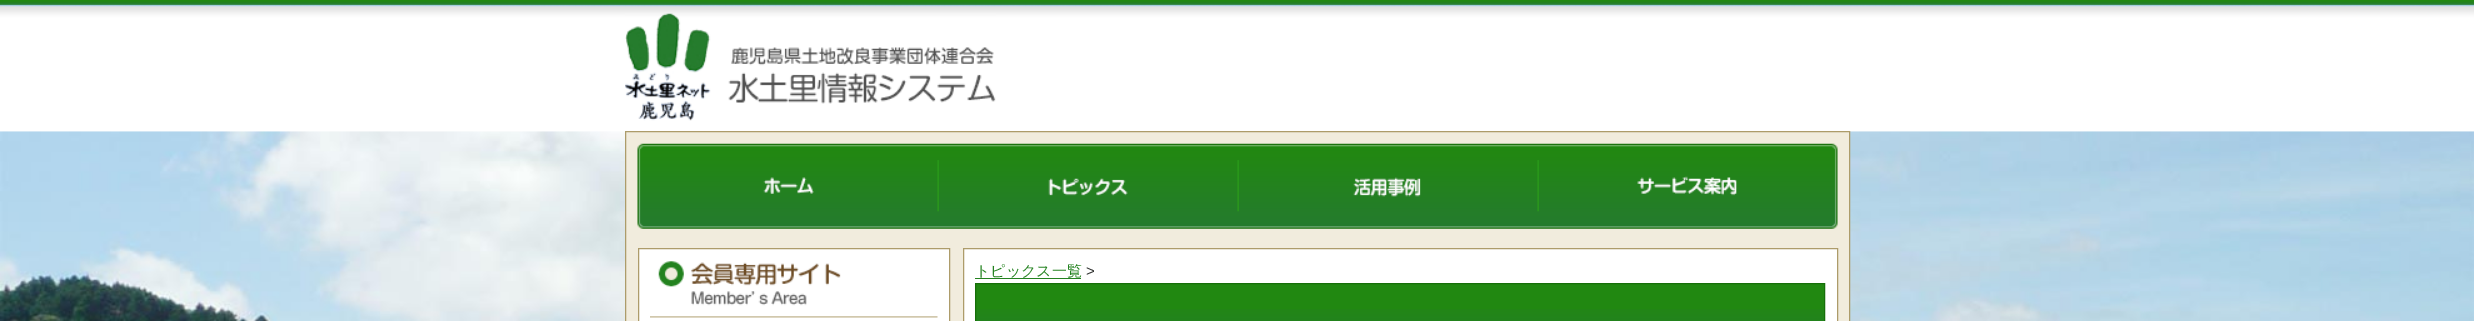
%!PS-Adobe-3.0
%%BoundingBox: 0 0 2474 321
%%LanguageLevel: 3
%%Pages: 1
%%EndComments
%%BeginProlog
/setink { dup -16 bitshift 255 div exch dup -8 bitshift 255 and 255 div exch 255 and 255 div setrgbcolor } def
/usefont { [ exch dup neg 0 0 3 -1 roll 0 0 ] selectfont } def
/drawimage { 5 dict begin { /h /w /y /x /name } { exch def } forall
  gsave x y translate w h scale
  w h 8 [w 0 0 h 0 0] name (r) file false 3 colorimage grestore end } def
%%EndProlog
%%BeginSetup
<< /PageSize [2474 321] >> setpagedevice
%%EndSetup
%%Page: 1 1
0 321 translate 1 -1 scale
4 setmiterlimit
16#FFFFFF setink
0 0 2474 321 rectfill
(img1.raw) 0 131 2474 190 drawimage
(img2.raw) 0 0 2474 132 drawimage
(img3.raw) 625 13 371 108 drawimage
16#F1ECDD setink
625.5 131.5 moveto 1849.5 131.5 lineto 1849.5 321.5 lineto 625.5 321.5 lineto closepath gsave fill grestore
16#AD9C6A setink
stroke
(img4.raw) 637 143 1201 86 drawimage
16#FFFFFF setink
638.5 248.5 moveto 949.5 248.5 lineto 949.5 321.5 lineto 638.5 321.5 lineto closepath gsave fill grestore
16#AD9C6A setink
stroke
(img5.raw) 650 261 288 57 drawimage
16#FFFFFF setink
963.5 248.5 moveto 1837.5 248.5 lineto 1837.5 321.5 lineto 963.5 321.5 lineto closepath gsave fill grestore
16#AD9C6A setink
stroke
/WenQuanYiZenHei-Medium 15 usefont
16#23821F setink
975 276 moveto (トピックス一覧) show
975 278 106 1 rectfill
/LiberationSans-Regular 15 usefont
16#2E302E setink
1086 276 moveto (>) show
16#218811 setink
976 284 848 25 rectfill
(img6.raw) 976 309 848 12 drawimage
16#166F09 setink
975.5 283.5 849 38 rectstroke
showpage
%%EOF
